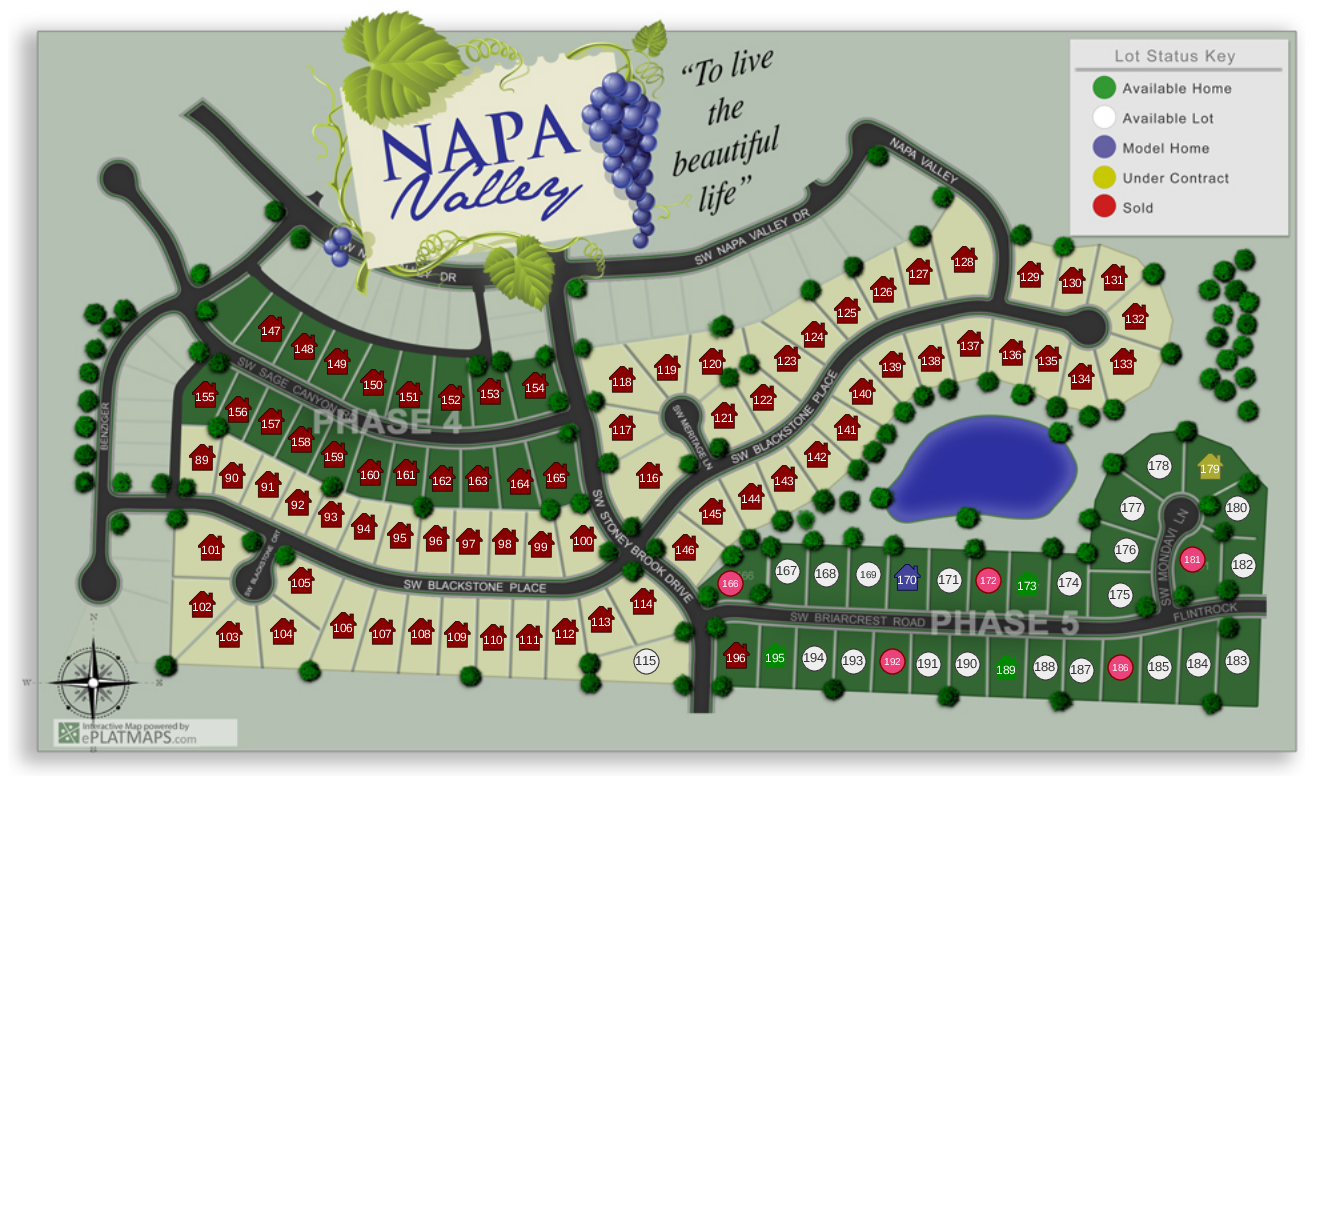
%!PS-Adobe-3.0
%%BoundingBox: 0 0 1332 1229
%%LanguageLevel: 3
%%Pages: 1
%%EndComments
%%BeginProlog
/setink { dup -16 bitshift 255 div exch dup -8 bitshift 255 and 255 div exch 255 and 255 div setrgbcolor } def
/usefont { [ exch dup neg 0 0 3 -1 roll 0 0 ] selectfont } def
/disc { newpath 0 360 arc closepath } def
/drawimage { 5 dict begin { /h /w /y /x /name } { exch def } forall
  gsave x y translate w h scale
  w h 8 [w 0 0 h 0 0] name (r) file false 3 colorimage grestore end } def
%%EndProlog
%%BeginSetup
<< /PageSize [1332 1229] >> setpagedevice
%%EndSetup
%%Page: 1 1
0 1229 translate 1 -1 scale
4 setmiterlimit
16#FFFFFF setink
0 0 1332 1229 rectfill
(img1.raw) 8 10 1297 766 drawimage
(img2.raw) 951 246 27 27 drawimage
/LiberationSans-Regular 12 usefont
954 266 moveto (128) show
(img3.raw) 906 258 27 27 drawimage
909 278 moveto (127) show
(img4.raw) 1017 261 27 27 drawimage
1020 281 moveto (129) show
(img5.raw) 1059 267 27 27 drawimage
1062 287 moveto (130) show
(img6.raw) 1101 264 27 27 drawimage
1104 284 moveto (131) show
(img7.raw) 870 276 27 27 drawimage
873 296 moveto (126) show
(img8.raw) 834 297 27 27 drawimage
837 317 moveto (125) show
(img9.raw) 1122 303 27 27 drawimage
1125 323 moveto (132) show
(img10.raw) 258 315 27 27 drawimage
261 335 moveto (147) show
(img11.raw) 801 321 27 27 drawimage
804 341 moveto (124) show
(img12.raw) 291 333 27 27 drawimage
294 353 moveto (148) show
(img13.raw) 957 330 27 27 drawimage
960 350 moveto (137) show
(img14.raw) 999 339 27 27 drawimage
1002 359 moveto (136) show
(img15.raw) 324 348 27 27 drawimage
327 368 moveto (149) show
(img16.raw) 654 354 27 27 drawimage
657 374 moveto (119) show
(img17.raw) 699 348 27 27 drawimage
702 368 moveto (120) show
(img18.raw) 774 345 27 27 drawimage
777 365 moveto (123) show
(img19.raw) 879 351 27 27 drawimage
882 371 moveto (139) show
(img20.raw) 918 345 27 27 drawimage
921 365 moveto (138) show
(img21.raw) 1035 345 27 27 drawimage
1038 365 moveto (135) show
(img22.raw) 1110 348 27 27 drawimage
1113 368 moveto (133) show
(img23.raw) 360 369 27 27 drawimage
363 389 moveto (150) show
(img24.raw) 522 372 27 27 drawimage
525 392 moveto (154) show
(img25.raw) 609 366 27 27 drawimage
612 386 moveto (118) show
(img26.raw) 1068 363 27 27 drawimage
1071 383 moveto (134) show
(img27.raw) 192 381 27 27 drawimage
195 401 moveto (155) show
(img28.raw) 396 381 27 27 drawimage
399 401 moveto (151) show
(img29.raw) 438 384 27 27 drawimage
441 404 moveto (152) show
(img30.raw) 477 378 27 27 drawimage
480 398 moveto (153) show
(img31.raw) 750 384 27 27 drawimage
753 404 moveto (122) show
(img32.raw) 849 378 27 27 drawimage
852 398 moveto (140) show
(img33.raw) 225 396 27 27 drawimage
228 416 moveto (156) show
(img34.raw) 711 402 27 27 drawimage
714 422 moveto (121) show
(img35.raw) 258 408 27 27 drawimage
261 428 moveto (157) show
(img36.raw) 609 414 27 27 drawimage
612 434 moveto (117) show
(img37.raw) 834 414 27 27 drawimage
837 434 moveto (141) show
(img38.raw) 288 426 27 27 drawimage
291 446 moveto (158) show
(img39.raw) 189 444 27 27 drawimage
195 464 moveto (89) show
(img40.raw) 321 441 27 27 drawimage
324 461 moveto (159) show
(img41.raw) 804 441 27 27 drawimage
807 461 moveto (142) show
16#EEEEEE setink
1159.5 466.5 12.5 disc gsave fill grestore
16#333333 setink
0.8 setlinewidth
stroke
/LiberationSans-Regular 13 usefont
1148 470 moveto (178) show
(img42.raw) 1197 453 27 27 drawimage
/LiberationSans-Regular 12 usefont
16#FFFFFF setink
1200 473 moveto (179) show
(img43.raw) 219 462 27 27 drawimage
225 482 moveto (90) show
(img44.raw) 255 471 27 27 drawimage
261 491 moveto (91) show
(img45.raw) 357 459 27 27 drawimage
360 479 moveto (160) show
(img46.raw) 393 459 27 27 drawimage
396 479 moveto (161) show
(img47.raw) 429 465 27 27 drawimage
432 485 moveto (162) show
(img48.raw) 465 465 27 27 drawimage
468 485 moveto (163) show
(img49.raw) 507 468 27 27 drawimage
510 488 moveto (164) show
(img50.raw) 543 462 27 27 drawimage
546 482 moveto (165) show
(img51.raw) 636 462 27 27 drawimage
639 482 moveto (116) show
(img52.raw) 771 465 27 27 drawimage
774 485 moveto (143) show
(img53.raw) 738 483 27 27 drawimage
741 503 moveto (144) show
(img54.raw) 285 489 27 27 drawimage
291 509 moveto (92) show
16#EEEEEE setink
1132.5 508.5 12.5 disc gsave fill grestore
16#333333 setink
stroke
/LiberationSans-Regular 13 usefont
1121 512 moveto (177) show
16#EEEEEE setink
1237.5 508.5 12.5 disc gsave fill grestore
16#333333 setink
stroke
1226 512 moveto (180) show
(img55.raw) 318 501 27 27 drawimage
/LiberationSans-Regular 12 usefont
16#FFFFFF setink
324 521 moveto (93) show
(img56.raw) 699 498 27 27 drawimage
702 518 moveto (145) show
(img57.raw) 351 513 27 27 drawimage
357 533 moveto (94) show
(img2.raw) 198 534 27 27 drawimage
201 554 moveto (101) show
(img58.raw) 387 522 27 27 drawimage
393 542 moveto (95) show
(img59.raw) 423 525 27 27 drawimage
429 545 moveto (96) show
(img60.raw) 456 528 27 27 drawimage
462 548 moveto (97) show
(img61.raw) 492 528 27 27 drawimage
498 548 moveto (98) show
(img62.raw) 528 531 27 27 drawimage
534 551 moveto (99) show
(img63.raw) 570 525 27 27 drawimage
573 545 moveto (100) show
(img64.raw) 672 534 27 27 drawimage
675 554 moveto (146) show
16#EEEEEE setink
1126.5 550.5 12.5 disc gsave fill grestore
16#333333 setink
stroke
/LiberationSans-Regular 13 usefont
1115 554 moveto (176) show
16#EA437B setink
1192.5 559.5 12.5 disc gsave fill grestore
16#880000 setink
1.2 setlinewidth
stroke
/LiberationSans-Regular 10 usefont
16#FFFFFF setink
1184 563 moveto (181) show
16#EEEEEE setink
1243.5 565.5 12.5 disc gsave fill grestore
16#333333 setink
0.8 setlinewidth
stroke
/LiberationSans-Regular 13 usefont
1232 569 moveto (182) show
(img65.raw) 288 567 27 27 drawimage
/LiberationSans-Regular 12 usefont
16#FFFFFF setink
291 587 moveto (105) show
16#EA437B setink
730.5 583.5 12.5 disc gsave fill grestore
16#880000 setink
1.2 setlinewidth
stroke
/LiberationSans-Regular 10 usefont
16#FFFFFF setink
722 587 moveto (166) show
16#EEEEEE setink
787.5 571.5 12.5 disc gsave fill grestore
16#333333 setink
0.8 setlinewidth
stroke
/LiberationSans-Regular 13 usefont
776 575 moveto (167) show
16#EEEEEE setink
826.5 574.5 12.5 disc gsave fill grestore
16#333333 setink
stroke
815 578 moveto (168) show
16#EEEEEE setink
868.5 574.5 12.5 disc gsave fill grestore
16#333333 setink
stroke
/LiberationSans-Regular 10 usefont
860 578 moveto (169) show
(img66.raw) 894 564 27 27 drawimage
/LiberationSans-Regular 12 usefont
16#FFFFFF setink
897 584 moveto (170) show
16#EEEEEE setink
949.5 580.5 12.5 disc gsave fill grestore
16#333333 setink
stroke
/LiberationSans-Regular 13 usefont
938 584 moveto (171) show
16#EA437B setink
988.5 580.5 12.5 disc gsave fill grestore
16#880000 setink
1.2 setlinewidth
stroke
/LiberationSans-Regular 10 usefont
16#FFFFFF setink
980 584 moveto (172) show
(img67.raw) 1015 571 25 26 drawimage
/LiberationSans-Regular 12 usefont
1017 590 moveto (173) show
16#EEEEEE setink
1069.5 583.5 12.5 disc gsave fill grestore
16#333333 setink
0.8 setlinewidth
stroke
/LiberationSans-Regular 13 usefont
1058 587 moveto (174) show
16#EEEEEE setink
1120.5 595.5 12.5 disc gsave fill grestore
16#333333 setink
stroke
1109 599 moveto (175) show
(img68.raw) 189 591 27 27 drawimage
/LiberationSans-Regular 12 usefont
16#FFFFFF setink
192 611 moveto (102) show
(img69.raw) 630 588 27 27 drawimage
633 608 moveto (114) show
(img70.raw) 588 606 27 27 drawimage
591 626 moveto (113) show
(img71.raw) 330 612 27 27 drawimage
333 632 moveto (106) show
(img72.raw) 216 621 27 27 drawimage
219 641 moveto (103) show
(img73.raw) 270 618 27 27 drawimage
273 638 moveto (104) show
(img74.raw) 369 618 27 27 drawimage
372 638 moveto (107) show
(img75.raw) 408 618 27 27 drawimage
411 638 moveto (108) show
(img76.raw) 444 621 27 27 drawimage
447 641 moveto (109) show
(img77.raw) 480 624 27 27 drawimage
483 644 moveto (110) show
(img78.raw) 516 624 27 27 drawimage
519 644 moveto 0.5 0 (111) ashow
(img79.raw) 552 618 27 27 drawimage
555 638 moveto (112) show
16#EEEEEE setink
646.5 661.5 12.5 disc gsave fill grestore
16#333333 setink
stroke
/LiberationSans-Regular 13 usefont
635 665 moveto (115) show
(img80.raw) 723 642 27 27 drawimage
/LiberationSans-Regular 12 usefont
16#FFFFFF setink
726 662 moveto (196) show
(img81.raw) 762 643 26 25 drawimage
765 662 moveto (195) show
16#EEEEEE setink
814.5 658.5 12.5 disc gsave fill grestore
16#333333 setink
stroke
/LiberationSans-Regular 13 usefont
803 662 moveto (194) show
16#EEEEEE setink
853.5 661.5 12.5 disc gsave fill grestore
16#333333 setink
stroke
842 665 moveto (193) show
16#EA437B setink
892.5 661.5 12.5 disc gsave fill grestore
16#880000 setink
1.2 setlinewidth
stroke
/LiberationSans-Regular 10 usefont
16#FFFFFF setink
884 665 moveto (192) show
16#EEEEEE setink
928.5 664.5 12.5 disc gsave fill grestore
16#333333 setink
0.8 setlinewidth
stroke
/LiberationSans-Regular 13 usefont
917 668 moveto (191) show
16#EEEEEE setink
967.5 664.5 12.5 disc gsave fill grestore
16#333333 setink
stroke
956 668 moveto (190) show
(img82.raw) 994 655 25 25 drawimage
/LiberationSans-Regular 12 usefont
16#FFFFFF setink
996 674 moveto (189) show
16#EEEEEE setink
1045.5 667.5 12.5 disc gsave fill grestore
16#333333 setink
stroke
/LiberationSans-Regular 13 usefont
1034 671 moveto (188) show
16#EEEEEE setink
1081.5 670.5 12.5 disc gsave fill grestore
16#333333 setink
stroke
1070 674 moveto (187) show
16#EA437B setink
1120.5 667.5 12.5 disc gsave fill grestore
16#880000 setink
1.2 setlinewidth
stroke
/LiberationSans-Regular 10 usefont
16#FFFFFF setink
1112 671 moveto (186) show
16#EEEEEE setink
1159.5 667.5 12.5 disc gsave fill grestore
16#333333 setink
0.8 setlinewidth
stroke
/LiberationSans-Regular 13 usefont
1148 671 moveto (185) show
16#EEEEEE setink
1198.5 664.5 12.5 disc gsave fill grestore
16#333333 setink
stroke
1187 668 moveto (184) show
16#EEEEEE setink
1237.5 661.5 12.5 disc gsave fill grestore
16#333333 setink
stroke
1226 665 moveto (183) show
showpage
%%EOF
